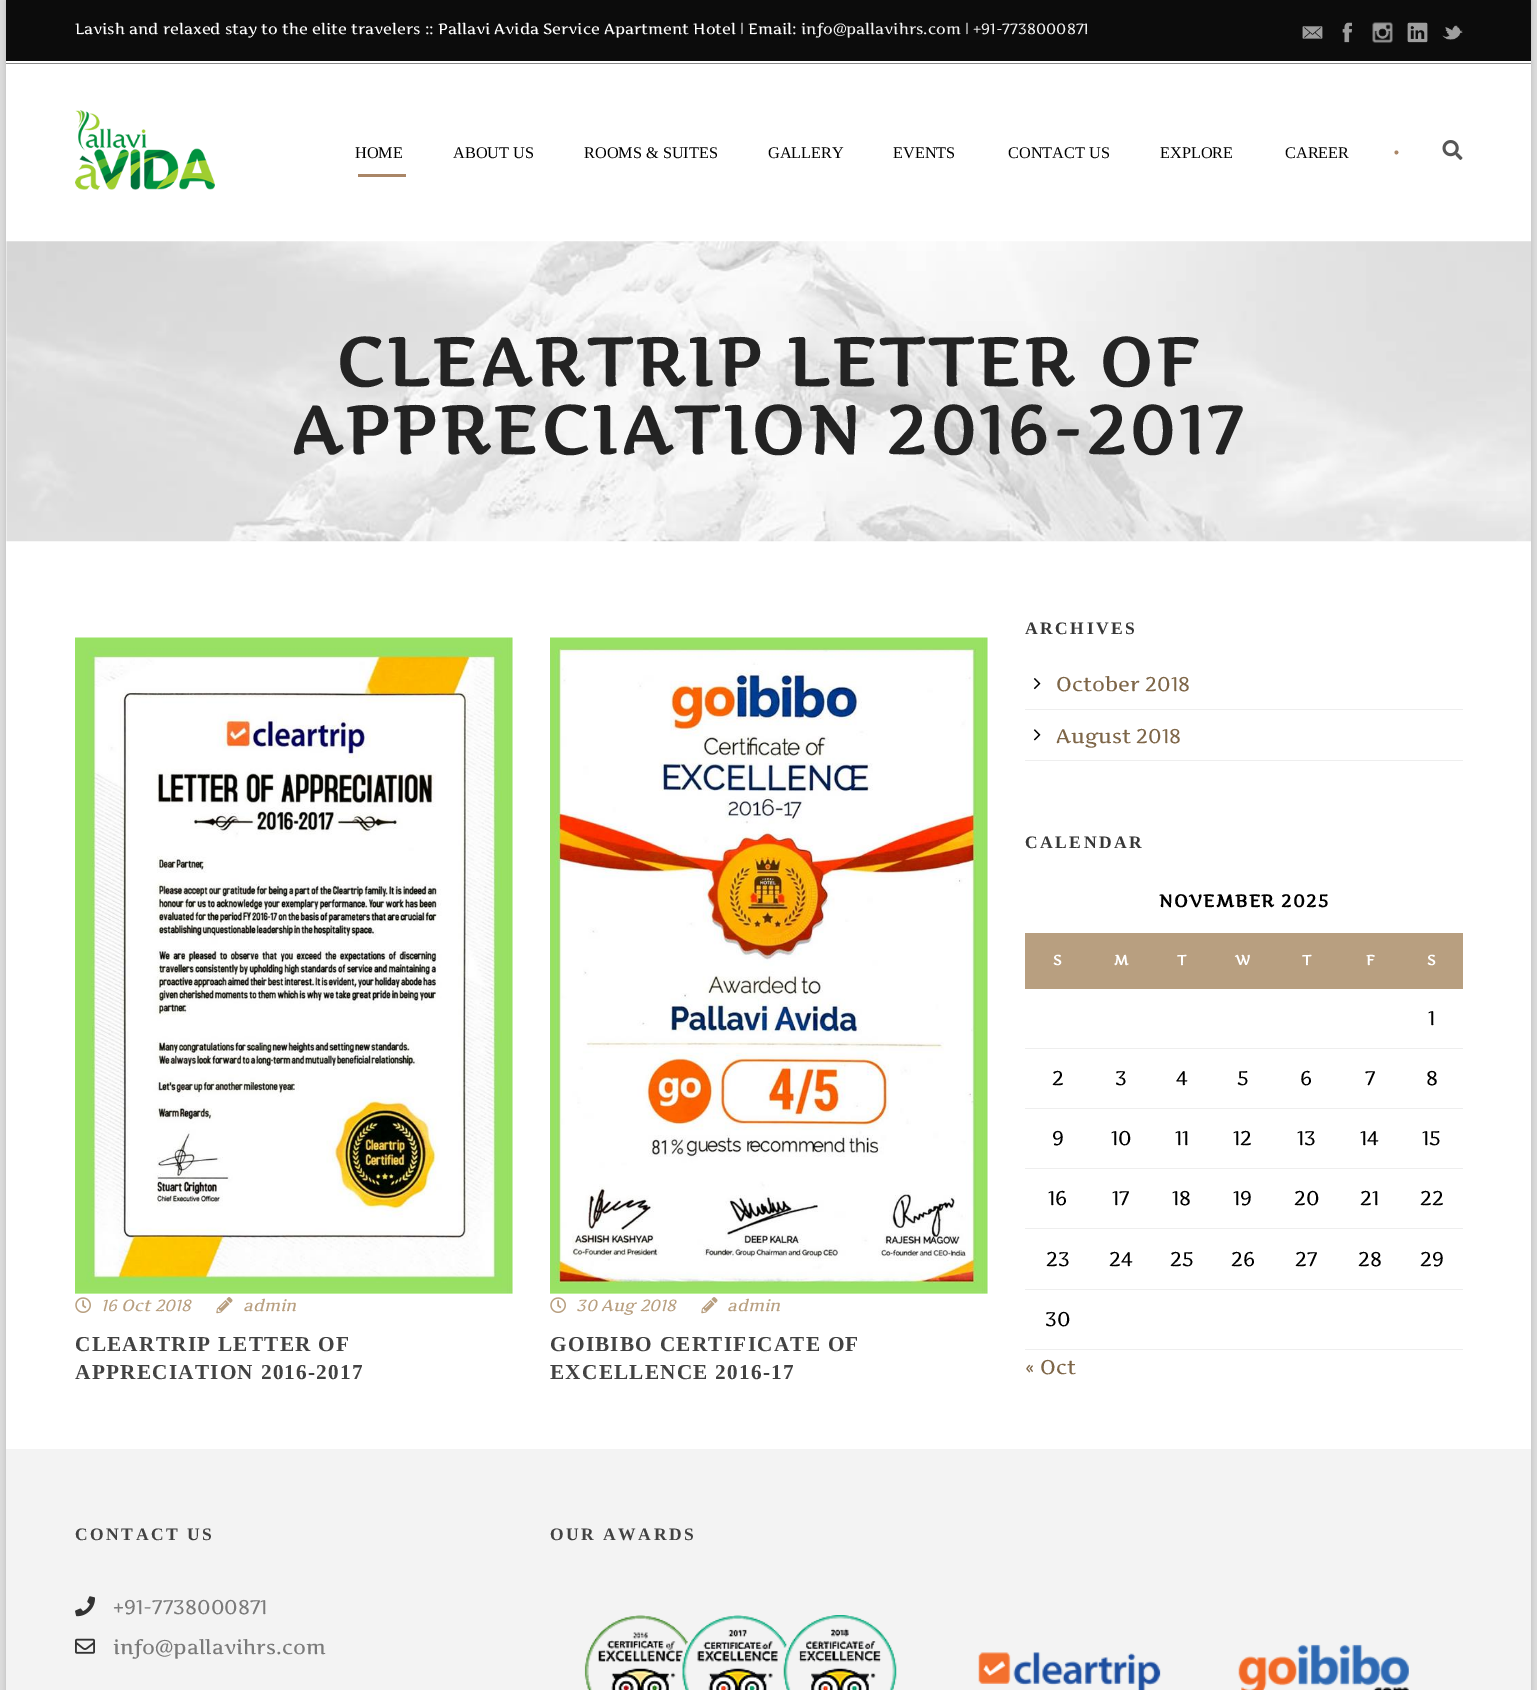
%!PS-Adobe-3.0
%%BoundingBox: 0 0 1537 1690
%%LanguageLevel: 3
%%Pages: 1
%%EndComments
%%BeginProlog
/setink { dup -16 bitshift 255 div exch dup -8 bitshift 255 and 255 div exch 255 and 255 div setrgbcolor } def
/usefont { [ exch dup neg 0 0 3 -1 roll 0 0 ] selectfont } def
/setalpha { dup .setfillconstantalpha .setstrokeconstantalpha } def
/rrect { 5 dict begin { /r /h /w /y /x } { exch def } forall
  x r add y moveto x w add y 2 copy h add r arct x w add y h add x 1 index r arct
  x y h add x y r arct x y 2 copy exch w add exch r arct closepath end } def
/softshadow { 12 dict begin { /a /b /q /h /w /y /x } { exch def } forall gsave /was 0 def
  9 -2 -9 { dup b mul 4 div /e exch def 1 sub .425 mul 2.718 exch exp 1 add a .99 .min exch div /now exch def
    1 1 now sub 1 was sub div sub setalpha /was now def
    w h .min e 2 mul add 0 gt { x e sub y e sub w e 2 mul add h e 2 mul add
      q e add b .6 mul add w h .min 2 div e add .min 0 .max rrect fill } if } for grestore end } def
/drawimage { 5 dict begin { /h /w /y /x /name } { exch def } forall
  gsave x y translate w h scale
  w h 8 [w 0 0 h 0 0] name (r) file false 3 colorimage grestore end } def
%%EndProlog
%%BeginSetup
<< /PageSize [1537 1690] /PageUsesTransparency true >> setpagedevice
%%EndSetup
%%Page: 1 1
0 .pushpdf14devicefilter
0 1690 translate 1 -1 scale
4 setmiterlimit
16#DDDDDD setink
0 0 1537 1690 rectfill
16#000000 setink
6 1 1525 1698 0 3 0.15 softshadow
16#FFFFFF setink
6 61 1525 1388 rectfill
16#0C0C0C setink
6 0 1525 61 rectfill
/Artifika-Regular 15 usefont
16#FFFFFF setink
75 34 moveto (Lavish and relaxed stay to the elite travelers :: Pallavi Avida Service Apartment Hotel | Email:) show
16#F2F2F2 setink
801 34 moveto (info@pallavihrs.com) show
16#FFFFFF setink
965 34 moveto (|) show
16#F2F2F2 setink
973 34 moveto (+91-7738000871) show
(img1.raw) 1302 26 21 13 drawimage
(img2.raw) 1342 22 10 21 drawimage
(img3.raw) 1372 22 21 21 drawimage
(img4.raw) 1407 22 21 21 drawimage
(img5.raw) 1442 25 21 15 drawimage
16#898989 setink
6 63 1525 1 rectfill
(img6.raw) 75 110 140 80 drawimage
/LiberationSerif-Regular 16.25 usefont
16#000000 setink
[
    [(HOME) 355 158]
    [(ABOUT US) 453 158]
    [(ROOMS & SUITES) 584 158]
    [(GALLERY) 768 158]
    [(EVENTS) 893 158]
    [(CONTACT US) 1008 158]
    [(EXPLORE) 1160 158]
    [(CAREER) 1285 158]
] { aload pop moveto show } forall
/Artifika-Regular 20 usefont
16#AA8667 setink
1393 158 moveto (•) show
(img7.raw) 1442 140 21 20 drawimage
358 174 48 3 rectfill
(img8.raw) 6 241 1525 301 drawimage
/Artifika-Bold 67.5 usefont
16#232323 setink
336 386 moveto 3.75 0 (CLEARTRIP LETTER OF) ashow
291 454 moveto 3.75 0 (APPRECIATION 2016-2017) ashow
(img9.raw) 75 637 438 657 drawimage
(img10.raw) 75 1297 16 16 drawimage
/Artifika-Italic 16.25 usefont
16#B89F80 setink
101 1311 moveto (16 Oct 2018) show
(img11.raw) 216 1297 17 17 drawimage
243 1311 moveto (admin) show
/LiberationSerif-Bold 21.25 usefont
16#424242 setink
75 1351 moveto 1.25 0 (CLEARTRIP LETTER OF) ashow
75 1379 moveto 1.25 0 (APPRECIATION 2016-2017) ashow
(img12.raw) 550 637 438 657 drawimage
(img10.raw) 550 1297 16 16 drawimage
/Artifika-Italic 16.25 usefont
16#B89F80 setink
576 1311 moveto (30 Aug 2018) show
(img11.raw) 701 1297 17 17 drawimage
727 1311 moveto (admin) show
/LiberationSerif-Bold 21.25 usefont
16#424242 setink
550 1351 moveto 1.25 0 (GOIBIBO CERTIFICATE OF) ashow
550 1379 moveto 1.25 0 (EXCELLENCE 2016-17) ashow
/LiberationSerif-Bold 17.5 usefont
16#383838 setink
1025 634 moveto 2.5 0 (ARCHIVES) ashow
16#EEEEEE setink
1025 709 438 1 rectfill
(img13.raw) 1033 678 8 12 drawimage
/Artifika-Regular 20 usefont
16#7E6648 setink
1056 691 moveto (October 2018) show
16#EEEEEE setink
1025 760 438 1 rectfill
(img14.raw) 1033 729 8 12 drawimage
16#7E6648 setink
1056 743 moveto (August 2018) show
/LiberationSerif-Bold 17.5 usefont
16#383838 setink
1025 848 moveto 2.5 0 (CALENDAR) ashow
/Artifika-Bold 17.5 usefont
16#000000 setink
1159 907 moveto 1.25 0 (NOVEMBER 2025) ashow
16#B89F80 setink
1025 933 438 56 rectfill
/Artifika-Bold 14 usefont
16#FFFFFF setink
[
    [(S) 1053 965]
    [(M) 1114 965]
    [(T) 1177 965]
    [(W) 1235 965]
    [(T) 1302 965]
    [(F) 1366 965]
    [(S) 1427 965]
] { aload pop moveto show } forall
16#EEEEEE setink
1025 1048 438 1 rectfill
/Artifika-Regular 20 usefont
16#000000 setink
[
    [(1) 1428 1025]
    [(2) 1052 1085]
    [(3) 1115 1085]
    [(4) 1176 1085]
    [(5) 1237 1085]
    [(6) 1300 1085]
    [(7) 1365 1085]
] { aload pop moveto show } forall
16#EEEEEE setink
1025 1108 438 1 rectfill
16#000000 setink
[
    [(8) 1426 1085]
    [(9) 1052 1145]
    [(10) 1111 1145]
    [(11) 1175 1145]
    [(12) 1233 1145]
    [(13) 1297 1145]
    [(14) 1360 1145]
] { aload pop moveto show } forall
16#EEEEEE setink
1025 1168 438 1 rectfill
16#000000 setink
[
    [(15) 1422 1145]
    [(16) 1048 1205]
    [(17) 1112 1205]
    [(18) 1172 1205]
    [(19) 1233 1205]
    [(20) 1294 1205]
    [(21) 1360 1205]
] { aload pop moveto show } forall
16#EEEEEE setink
1025 1228 438 1 rectfill
16#000000 setink
[
    [(22) 1420 1205]
    [(23) 1046 1266]
    [(24) 1109 1266]
    [(25) 1170 1266]
    [(26) 1231 1266]
    [(27) 1295 1266]
    [(28) 1358 1266]
] { aload pop moveto show } forall
16#EEEEEE setink
1025 1289 438 1 rectfill
16#000000 setink
1420 1266 moveto (29) show
1045 1326 moveto (30) show
16#EEEEEE setink
1025 1349 438 1 rectfill
16#7E6648 setink
1025 1374 moveto (« Oct) show
16#F3F3F3 setink
6 1449 1525 241 rectfill
/LiberationSerif-Bold 17.5 usefont
16#424242 setink
75 1540 moveto 2.5 0 (CONTACT US) ashow
(img15.raw) 75 1596 20 21 drawimage
/Artifika-Regular 20 usefont
16#7A7A7A setink
113 1614 moveto (+91-7738000871) show
(img16.raw) 75 1638 20 16 drawimage
113 1654 moveto (info@pallavihrs.com) show
/LiberationSerif-Bold 17.5 usefont
16#424242 setink
550 1540 moveto 2.5 0 (OUR AWARDS) ashow
(img17.raw) 584 1615 313 75 drawimage
(img18.raw) 978 1652 183 38 drawimage
(img19.raw) 1238 1644 171 46 drawimage
.poppdf14devicefilter showpage
%%EOF
